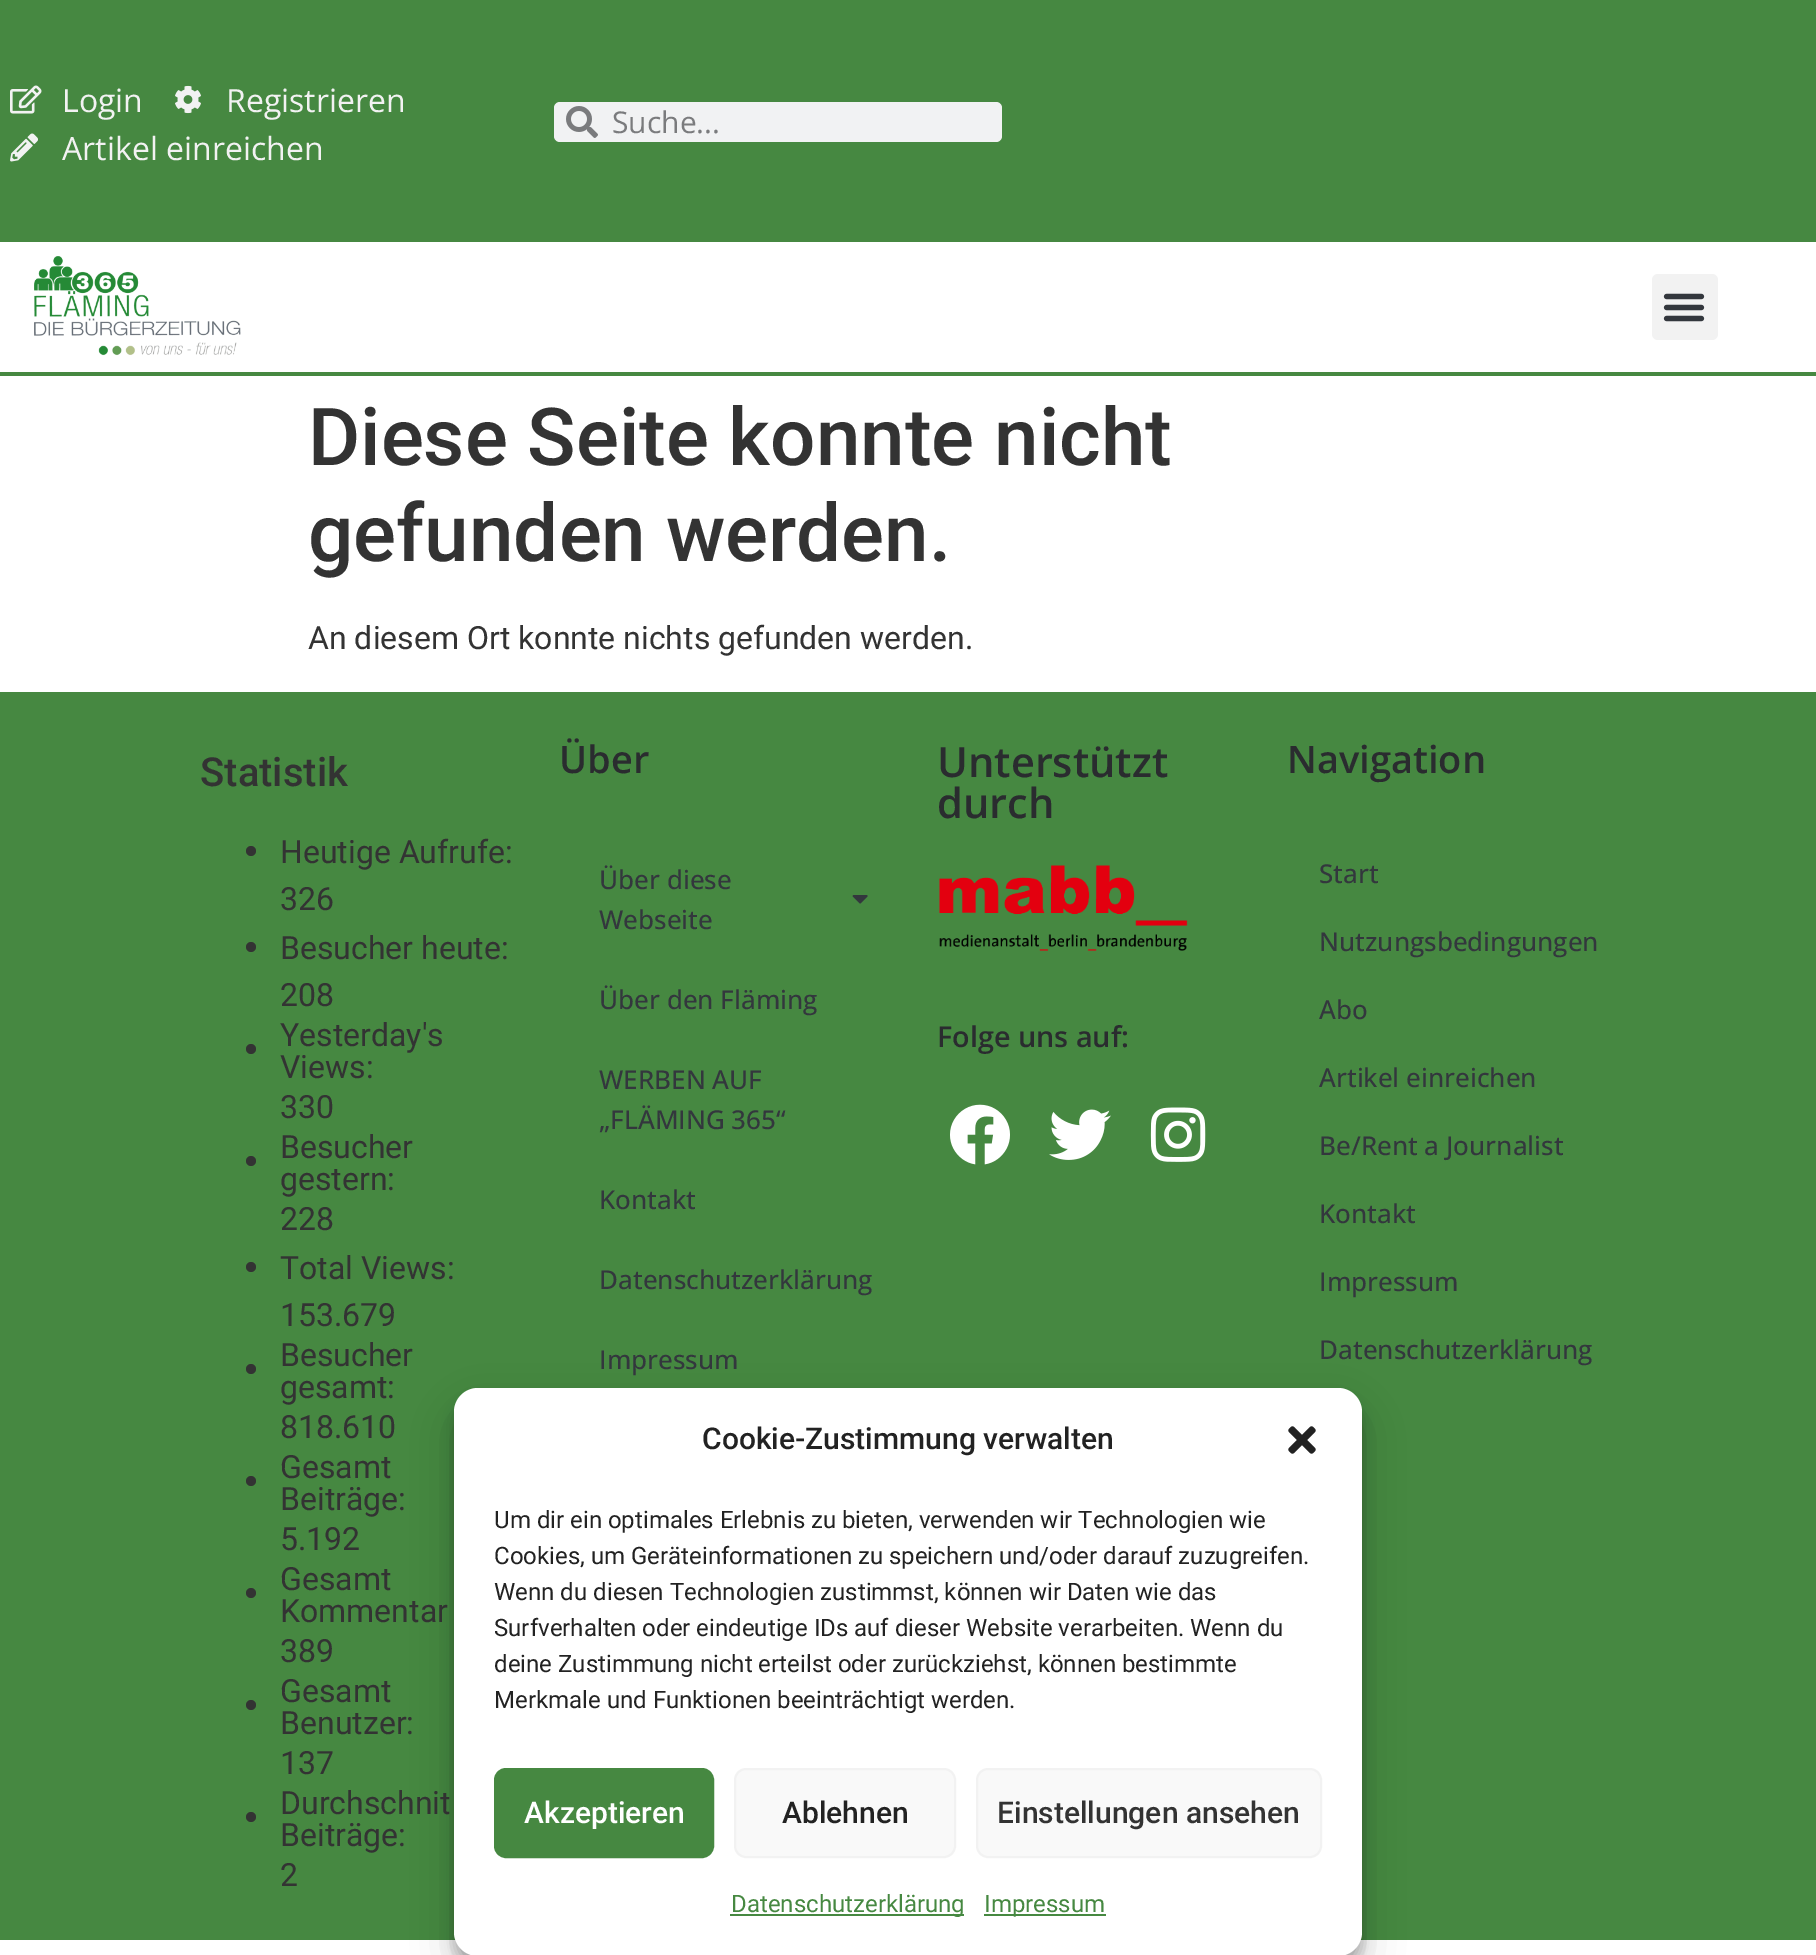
%!PS-Adobe-3.0
%%BoundingBox: 0 0 1816 1955
%%LanguageLevel: 3
%%Pages: 1
%%EndComments
%%BeginProlog
/setink { dup -16 bitshift 255 div exch dup -8 bitshift 255 and 255 div exch 255 and 255 div setrgbcolor } def
/usefont { [ exch dup neg 0 0 3 -1 roll 0 0 ] selectfont } def
/setalpha { dup .setfillconstantalpha .setstrokeconstantalpha } def
/disc { newpath 0 360 arc closepath } def
/rrect { 5 dict begin { /r /h /w /y /x } { exch def } forall
  x r add y moveto x w add y 2 copy h add r arct x w add y h add x 1 index r arct
  x y h add x y r arct x y 2 copy exch w add exch r arct closepath end } def
/softshadow { 12 dict begin { /a /b /q /h /w /y /x } { exch def } forall gsave /was 0 def
  9 -2 -9 { dup b mul 4 div /e exch def 1 sub .425 mul 2.718 exch exp 1 add a .99 .min exch div /now exch def
    1 1 now sub 1 was sub div sub setalpha /was now def
    w h .min e 2 mul add 0 gt { x e sub y e sub w e 2 mul add h e 2 mul add
      q e add b .6 mul add w h .min 2 div e add .min 0 .max rrect fill } if } for grestore end } def
/drawimage { 5 dict begin { /h /w /y /x /name } { exch def } forall
  gsave x y translate w h scale
  w h 8 [w 0 0 h 0 0] name (r) file false 3 colorimage grestore end } def
%%EndProlog
%%BeginSetup
<< /PageSize [1816 1955] /PageUsesTransparency true >> setpagedevice
%%EndSetup
%%Page: 1 1
0 .pushpdf14devicefilter
0 1955 translate 1 -1 scale
4 setmiterlimit
16#FFFFFF setink
0 0 1816 1955 rectfill
16#468841 setink
0 0 1816 242 rectfill
(img1.raw) 10 85 32 29 drawimage
/OpenSans-Regular 32 usefont
16#F2F2F2 setink
62 112 moveto (Login) show
(img2.raw) 175 85 26 29 drawimage
226 112 moveto (Registrieren) show
(img3.raw) 10 133 28 29 drawimage
62 160 moveto (Artikel einreichen) show
16#F1F2F3 setink
554 102 448 40 6 rrect fill
(img4.raw) 566 106 32 32 drawimage
/OpenSans-Regular 30 usefont
16#7A7B7D setink
612 133 moveto (Suche...) show
16#468841 setink
0 372 1816 4 rectfill
(img5.raw) 34 256 207 100 drawimage
16#F2F2F2 setink
1652 274 66 66 6 rrect fill
(img6.raw) 1663 293 42 29 drawimage
/Roboto-Medium 80 usefont
16#333333 setink
308 465 moveto (Diese Seite konnte nicht) show
308 561 moveto (gefunden werden.) show
/Roboto-Regular 32 usefont
308 649 moveto (An diesem Ort konnte nichts gefunden werden.) show
16#468841 setink
0 692 1816 1248 rectfill
/Roboto-Medium 40 usefont
16#333333 setink
200 786 moveto (Statistik) show
251 851 5 disc fill
/Roboto-Regular 32 usefont
280 863 moveto (Heutige Aufrufe:) show
280 910 moveto (326) show
251 947 5 disc fill
280 959 moveto (Besucher heute:) show
280 1006 moveto (208) show
251 1049 5 disc fill
[
    [(Yesterday's) 280 1046]
    [(Views:) 280 1078]
    [(330) 280 1118]
] { aload pop moveto show } forall
251 1161 5 disc fill
[
    [(Besucher) 280 1158]
    [(gestern:) 280 1190]
    [(228) 280 1230]
] { aload pop moveto show } forall
251 1267 5 disc fill
280 1279 moveto (Total Views:) show
280 1326 moveto (153.679) show
251 1369 5 disc fill
[
    [(Besucher) 280 1366]
    [(gesamt:) 280 1398]
    [(818.610) 280 1438]
] { aload pop moveto show } forall
251 1481 5 disc fill
[
    [(Gesamt) 280 1478]
    [(Beiträge:) 280 1510]
    [(5.192) 280 1550]
] { aload pop moveto show } forall
251 1593 5 disc fill
[
    [(Gesamt) 280 1590]
    [(Kommentar) 280 1622]
    [(389) 280 1662]
] { aload pop moveto show } forall
251 1705 5 disc fill
[
    [(Gesamt) 280 1702]
    [(Benutzer:) 280 1734]
    [(137) 280 1774]
] { aload pop moveto show } forall
251 1817 5 disc fill
[
    [(Durchschnit) 280 1814]
    [(Beiträge:) 280 1846]
    [(2) 280 1886]
] { aload pop moveto show } forall
/OpenSans-SemiBold 38 usefont
16#2A2C2F setink
559 773 moveto (Über) show
/OpenSans-Medium 26 usefont
16#33373D setink
599 889 moveto (Über diese) show
(img7.raw) 852 895 16 9 drawimage
[
    [(Webseite) 599 929]
    [(Über den Fläming) 599 1009]
    [(WERBEN AUF) 599 1089]
    [(„FLÄMING 365“) 599 1129]
    [(Kontakt) 599 1209]
    [(Datenschutzerklärung) 599 1289]
    [(Impressum) 599 1369]
] { aload pop moveto show } forall
/OpenSans-SemiBold 41.5 usefont
16#2A2C2F setink
937 777 moveto (Unterstützt) show
937 818 moveto (durch) show
(img8.raw) 939 865 249 86 drawimage
/OpenSans-SemiBold 28.75 usefont
937 1047 moveto (Folge uns auf:) show
(img9.raw) 950 1104 60 61 drawimage
(img10.raw) 1049 1109 62 51 drawimage
(img11.raw) 1150 1107 56 55 drawimage
/OpenSans-SemiBold 38 usefont
1287 773 moveto (Navigation) show
/OpenSans-Medium 26 usefont
16#33373D setink
[
    [(Start) 1319 883]
    [(Nutzungsbedingungen) 1319 951]
    [(Abo) 1319 1019]
    [(Artikel einreichen) 1319 1087]
    [(Be/Rent a Journalist) 1319 1155]
    [(Kontakt) 1319 1223]
    [(Impressum) 1319 1291]
    [(Datenschutzerklärung) 1319 1359]
] { aload pop moveto show } forall
16#000000 setink
454 1400 908 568 24 6 0.23 softshadow
454 1408 908 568 24 20 0.19 softshadow
16#FFFFFF setink
454 1388 908 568 24 rrect fill
/Roboto-Medium 30 usefont
16#222222 setink
702 1449 moveto (Cookie-Zustimmung verwalten) show
(img12.raw) 1288 1426 28 28 drawimage
/Roboto-Regular 24 usefont
[
    [(Um dir ein optimales Erlebnis zu bieten, verwenden wir Technologien wie) 494 1528]
    [(Cookies, um Geräteinformationen zu speichern und/oder darauf zuzugreifen.) 494 1564]
    [(Wenn du diesen Technologien zustimmst, können wir Daten wie das) 494 1600]
    [(Surfverhalten oder eindeutige IDs auf dieser Website verarbeiten. Wenn du) 494 1636]
    [(deine Zustimmung nicht erteilst oder zurückziehst, können bestimmte) 494 1672]
    [(Merkmale und Funktionen beeinträchtigt werden.) 494 1708]
] { aload pop moveto show } forall
16#468841 setink
495 1769 218 88 11 rrect gsave fill grestore
2 setlinewidth
stroke
/Roboto-Medium 30 usefont
16#FFFFFF setink
524 1823 moveto (Akzeptieren) show
16#F9F9F9 setink
735 1769 220 88 11 rrect gsave fill grestore
16#F2F2F2 setink
stroke
16#222222 setink
782 1823 moveto (Ablehnen) show
16#F9F9F9 setink
977 1769 344 88 11 rrect gsave fill grestore
16#F2F2F2 setink
stroke
16#333333 setink
997 1823 moveto (Einstellungen ansehen) show
16#468841 setink
730 1914 234 2 rectfill
/Roboto-Regular 24 usefont
731 1912 moveto (Datenschutzerklärung) show
984 1914 122 2 rectfill
984 1912 moveto (Impressum) show
.poppdf14devicefilter showpage
%%EOF
